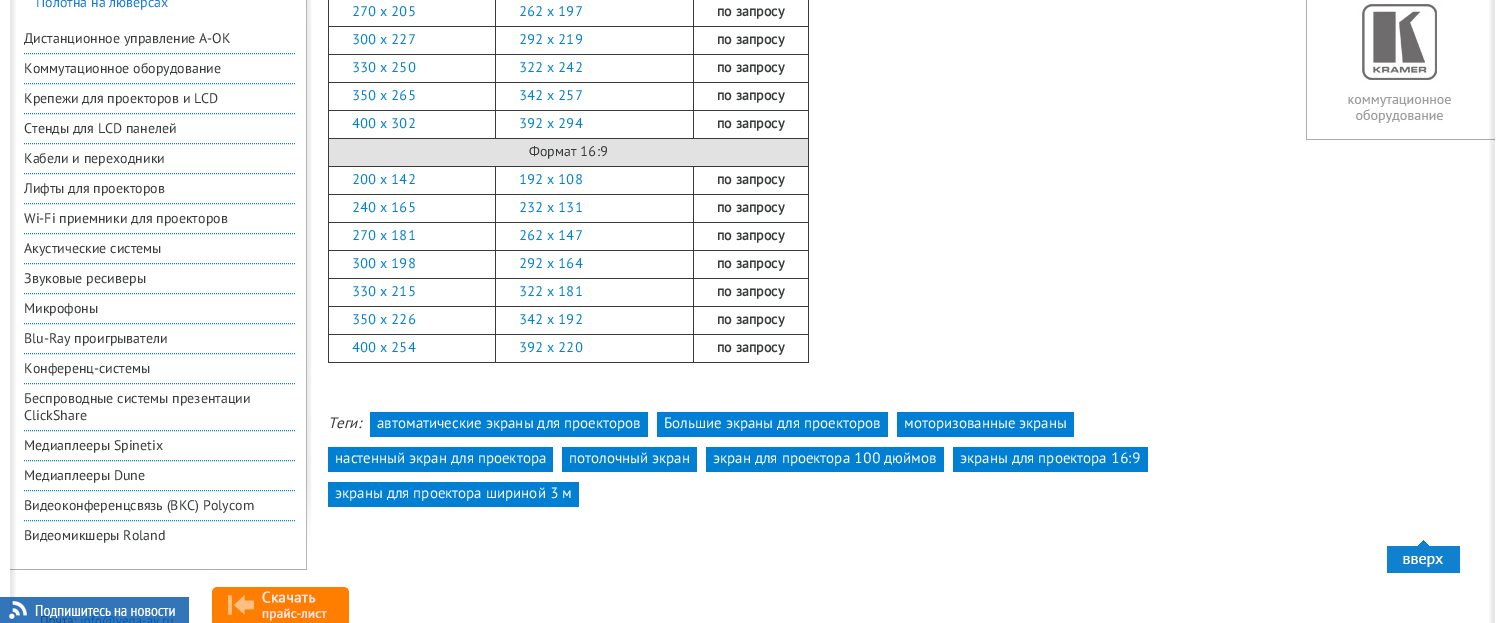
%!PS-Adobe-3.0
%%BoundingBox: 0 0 1505 623
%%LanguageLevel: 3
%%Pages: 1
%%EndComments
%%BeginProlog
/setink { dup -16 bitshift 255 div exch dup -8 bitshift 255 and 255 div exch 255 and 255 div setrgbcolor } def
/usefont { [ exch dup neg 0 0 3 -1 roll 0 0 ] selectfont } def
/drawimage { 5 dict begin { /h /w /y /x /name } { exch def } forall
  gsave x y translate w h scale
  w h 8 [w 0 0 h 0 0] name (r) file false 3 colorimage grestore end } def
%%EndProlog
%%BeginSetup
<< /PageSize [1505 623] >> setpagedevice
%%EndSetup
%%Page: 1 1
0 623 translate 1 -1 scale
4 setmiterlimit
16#FFFFFF setink
0 0 1505 623 rectfill
(img1.raw) 10 0 6 623 drawimage
(img2.raw) 1489 0 6 623 drawimage
(img3.raw) 306 0 6 570 drawimage
(img4.raw) 10 569 297 1 drawimage
/PTSans-Regular 14 usefont
16#197BDB setink
36 7 moveto (Полотна на люверсах) show
16#007FD3 setink
[1 1] 0 setdash
24 53.5 moveto 296 53.5 lineto stroke
16#383B3C setink
24 43 moveto (Дистанционное управление A-OK) show
16#007FD3 setink
24 83.5 moveto 296 83.5 lineto stroke
16#383B3C setink
24 73 moveto (Коммутационное оборудование) show
16#007FD3 setink
24 113.5 moveto 296 113.5 lineto stroke
16#383B3C setink
24 103 moveto (Крепежи для проекторов и LCD) show
16#007FD3 setink
24 143.5 moveto 296 143.5 lineto stroke
16#383B3C setink
24 133 moveto (Стенды для LCD панелей) show
16#007FD3 setink
24 173.5 moveto 296 173.5 lineto stroke
16#383B3C setink
24 163 moveto (Кабели и переходники) show
16#007FD3 setink
24 203.5 moveto 296 203.5 lineto stroke
16#383B3C setink
24 193 moveto (Лифты для проекторов) show
16#007FD3 setink
24 233.5 moveto 296 233.5 lineto stroke
16#383B3C setink
24 223 moveto (Wi-Fi приемники для проекторов) show
16#007FD3 setink
24 263.5 moveto 296 263.5 lineto stroke
16#383B3C setink
24 253 moveto (Акустические системы) show
16#007FD3 setink
24 293.5 moveto 296 293.5 lineto stroke
16#383B3C setink
24 283 moveto (Звуковые ресиверы) show
16#007FD3 setink
24 323.5 moveto 296 323.5 lineto stroke
16#383B3C setink
24 313 moveto (Микрофоны) show
16#007FD3 setink
24 353.5 moveto 296 353.5 lineto stroke
16#383B3C setink
24 343 moveto (Blu-Ray проигрыватели) show
16#007FD3 setink
24 383.5 moveto 296 383.5 lineto stroke
16#383B3C setink
24 373 moveto (Конференц-системы) show
16#007FD3 setink
24 430.5 moveto 296 430.5 lineto stroke
16#383B3C setink
24 403 moveto (Беспроводные системы презентации) show
24 420 moveto (ClickShare) show
16#007FD3 setink
24 460.5 moveto 296 460.5 lineto stroke
16#383B3C setink
24 450 moveto (Медиаплееры Spinetix) show
16#007FD3 setink
24 490.5 moveto 296 490.5 lineto stroke
16#383B3C setink
24 480 moveto (Медиаплееры Dune) show
16#007FD3 setink
24 520.5 moveto 296 520.5 lineto stroke
16#383B3C setink
24 510 moveto (Видеоконференцсвязь \(ВКС\) Polycom) show
24 540 moveto (Видеомикшеры Roland) show
16#007FD3 setink
352 16 moveto (270 х 205) show
[
    [693 26 116 1 16#383B3C]
    [693 54 116 1 16#383B3C]
    [693 82 116 1 16#383B3C]
    [693 110 116 1 16#383B3C]
    [328 138 481 1 16#383B3C]
    [693 110 1 29 16#383B3C]
    [495 110 199 1 16#383B3C]
    [693 82 1 29 16#383B3C]
    [495 82 199 1 16#383B3C]
    [693 54 1 29 16#383B3C]
    [495 54 199 1 16#383B3C]
    [693 26 1 29 16#383B3C]
    [495 26 199 1 16#383B3C]
    [495 110 1 29 16#383B3C]
    [328 110 168 1 16#383B3C]
    [495 82 1 29 16#383B3C]
    [328 82 168 1 16#383B3C]
    [495 54 1 29 16#383B3C]
    [328 54 168 1 16#383B3C]
    [495 26 1 29 16#383B3C]
    [328 26 168 1 16#383B3C]
    [495 0 1 27 16#383B3C]
] { aload pop setink rectfill } forall
16#007FD3 setink
519 16 moveto (262 x 197) show
16#383B3C setink
693 0 1 27 rectfill
/PTSans-Bold 14 usefont
717 16 moveto (по запросу) show
[
    [693 166 116 1 16#383B3C]
    [693 194 116 1 16#383B3C]
    [693 222 116 1 16#383B3C]
    [693 250 116 1 16#383B3C]
    [693 278 116 1 16#383B3C]
    [693 306 116 1 16#383B3C]
    [693 334 116 1 16#383B3C]
    [808 334 1 29 16#383B3C]
    [693 362 116 1 16#383B3C]
    [693 334 1 29 16#383B3C]
    [495 334 199 1 16#383B3C]
    [693 306 1 29 16#383B3C]
    [495 306 199 1 16#383B3C]
    [693 278 1 29 16#383B3C]
    [495 278 199 1 16#383B3C]
    [693 250 1 29 16#383B3C]
    [495 250 199 1 16#383B3C]
    [693 222 1 29 16#383B3C]
    [495 222 199 1 16#383B3C]
    [693 194 1 29 16#383B3C]
    [495 194 199 1 16#383B3C]
    [693 166 1 29 16#383B3C]
    [495 166 199 1 16#383B3C]
    [495 362 199 1 16#383B3C]
    [495 334 1 29 16#383B3C]
    [328 334 168 1 16#383B3C]
    [495 306 1 29 16#383B3C]
    [328 306 168 1 16#383B3C]
    [495 278 1 29 16#383B3C]
    [328 278 168 1 16#383B3C]
    [495 250 1 29 16#383B3C]
    [328 250 168 1 16#383B3C]
    [495 222 1 29 16#383B3C]
    [328 222 168 1 16#383B3C]
    [495 194 1 29 16#383B3C]
    [328 194 168 1 16#383B3C]
    [495 166 1 29 16#383B3C]
    [328 166 168 1 16#383B3C]
    [328 362 168 1 16#383B3C]
    [328 334 1 29 16#383B3C]
    [328 306 1 29 16#383B3C]
    [328 278 1 29 16#383B3C]
    [328 250 1 29 16#383B3C]
    [328 222 1 29 16#383B3C]
    [328 194 1 29 16#383B3C]
    [328 166 1 29 16#383B3C]
    [328 138 1 29 16#383B3C]
    [328 110 1 29 16#383B3C]
    [328 82 1 29 16#383B3C]
    [328 54 1 29 16#383B3C]
    [328 0 1 55 16#383B3C]
] { aload pop setink rectfill } forall
/PTSans-Regular 14 usefont
16#007FD3 setink
352 44 moveto (300 х 227) show
519 44 moveto (292 x 219) show
[
    [808 306 1 29 16#383B3C]
    [808 278 1 29 16#383B3C]
    [808 250 1 29 16#383B3C]
    [808 222 1 29 16#383B3C]
    [808 194 1 29 16#383B3C]
    [808 166 1 29 16#383B3C]
    [808 138 1 29 16#383B3C]
    [808 110 1 29 16#383B3C]
    [808 82 1 29 16#383B3C]
    [808 54 1 29 16#383B3C]
    [808 0 1 55 16#383B3C]
] { aload pop setink rectfill } forall
/PTSans-Bold 14 usefont
717 44 moveto (по запросу) show
/PTSans-Regular 14 usefont
16#007FD3 setink
352 72 moveto (330 х 250) show
519 72 moveto (322 x 242) show
/PTSans-Bold 14 usefont
16#383B3C setink
717 72 moveto (по запросу) show
/PTSans-Regular 14 usefont
16#007FD3 setink
352 100 moveto (350 x 265) show
519 100 moveto (342 x 257) show
/PTSans-Bold 14 usefont
16#383B3C setink
717 100 moveto (по запросу) show
/PTSans-Regular 14 usefont
16#007FD3 setink
352 128 moveto (400 x 302) show
519 128 moveto (392 x 294) show
/PTSans-Bold 14 usefont
16#383B3C setink
717 128 moveto (по запросу) show
16#E2E2E2 setink
329 139 479 27 rectfill
/PTSans-Regular 14 usefont
16#383B3C setink
529 156 moveto (Формат 16:9) show
16#007FD3 setink
352 184 moveto (200 x 142) show
519 184 moveto (192 x 108) show
/PTSans-Bold 14 usefont
16#383B3C setink
717 184 moveto (по запросу) show
/PTSans-Regular 14 usefont
16#007FD3 setink
352 212 moveto (240 x 165) show
519 212 moveto (232 x 131) show
/PTSans-Bold 14 usefont
16#383B3C setink
717 212 moveto (по запросу) show
/PTSans-Regular 14 usefont
16#007FD3 setink
352 240 moveto (270 x 181) show
519 240 moveto (262 x 147) show
/PTSans-Bold 14 usefont
16#383B3C setink
717 240 moveto (по запросу) show
/PTSans-Regular 14 usefont
16#007FD3 setink
352 268 moveto (300 x 198) show
519 268 moveto (292 x 164) show
/PTSans-Bold 14 usefont
16#383B3C setink
717 268 moveto (по запросу) show
/PTSans-Regular 14 usefont
16#007FD3 setink
352 296 moveto (330 x 215) show
519 296 moveto (322 x 181) show
/PTSans-Bold 14 usefont
16#383B3C setink
717 296 moveto (по запросу) show
/PTSans-Regular 14 usefont
16#007FD3 setink
352 324 moveto (350 x 226) show
519 324 moveto (342 x 192) show
/PTSans-Bold 14 usefont
16#383B3C setink
717 324 moveto (по запросу) show
/PTSans-Regular 14 usefont
16#007FD3 setink
352 352 moveto (400 x 254) show
519 352 moveto (392 x 220) show
/PTSans-Bold 14 usefont
16#383B3C setink
717 352 moveto (по запросу) show
/PTSans-Italic 15 usefont
328 428 moveto (Теги:) show
16#007FD3 setink
370 412 278 25 rectfill
/PTSans-Regular 15 usefont
16#FFFFFF setink
377 428 moveto (автоматические экраны для проекторов) show
16#007FD3 setink
657 412 231 25 rectfill
16#FFFFFF setink
664 428 moveto (Большие экраны для проекторов) show
16#007FD3 setink
897 412 177 25 rectfill
16#FFFFFF setink
904 428 moveto (моторизованные экраны) show
16#007FD3 setink
328 447 225 25 rectfill
16#FFFFFF setink
335 463 moveto (настенный экран для проектора) show
16#007FD3 setink
562 447 135 25 rectfill
16#FFFFFF setink
569 463 moveto (потолочный экран) show
16#007FD3 setink
706 447 238 25 rectfill
16#FFFFFF setink
713 463 moveto (экран для проектора 100 дюймов) show
16#007FD3 setink
953 447 195 25 rectfill
16#FFFFFF setink
960 463 moveto (экраны для проектора 16:9) show
16#007FD3 setink
328 482 251 25 rectfill
16#FFFFFF setink
335 498 moveto (экраны для проектора шириной 3 м) show
16#AEAEAE setink
1306 0 1 140 rectfill
(img5.raw) 1307 139 188 1 drawimage
(img6.raw) 1348 4 103 119 drawimage
(img7.raw) 1387 540 73 33 drawimage
(img8.raw) 0 597 189 26 drawimage
(img9.raw) 212 587 137 36 drawimage
showpage
%%EOF
